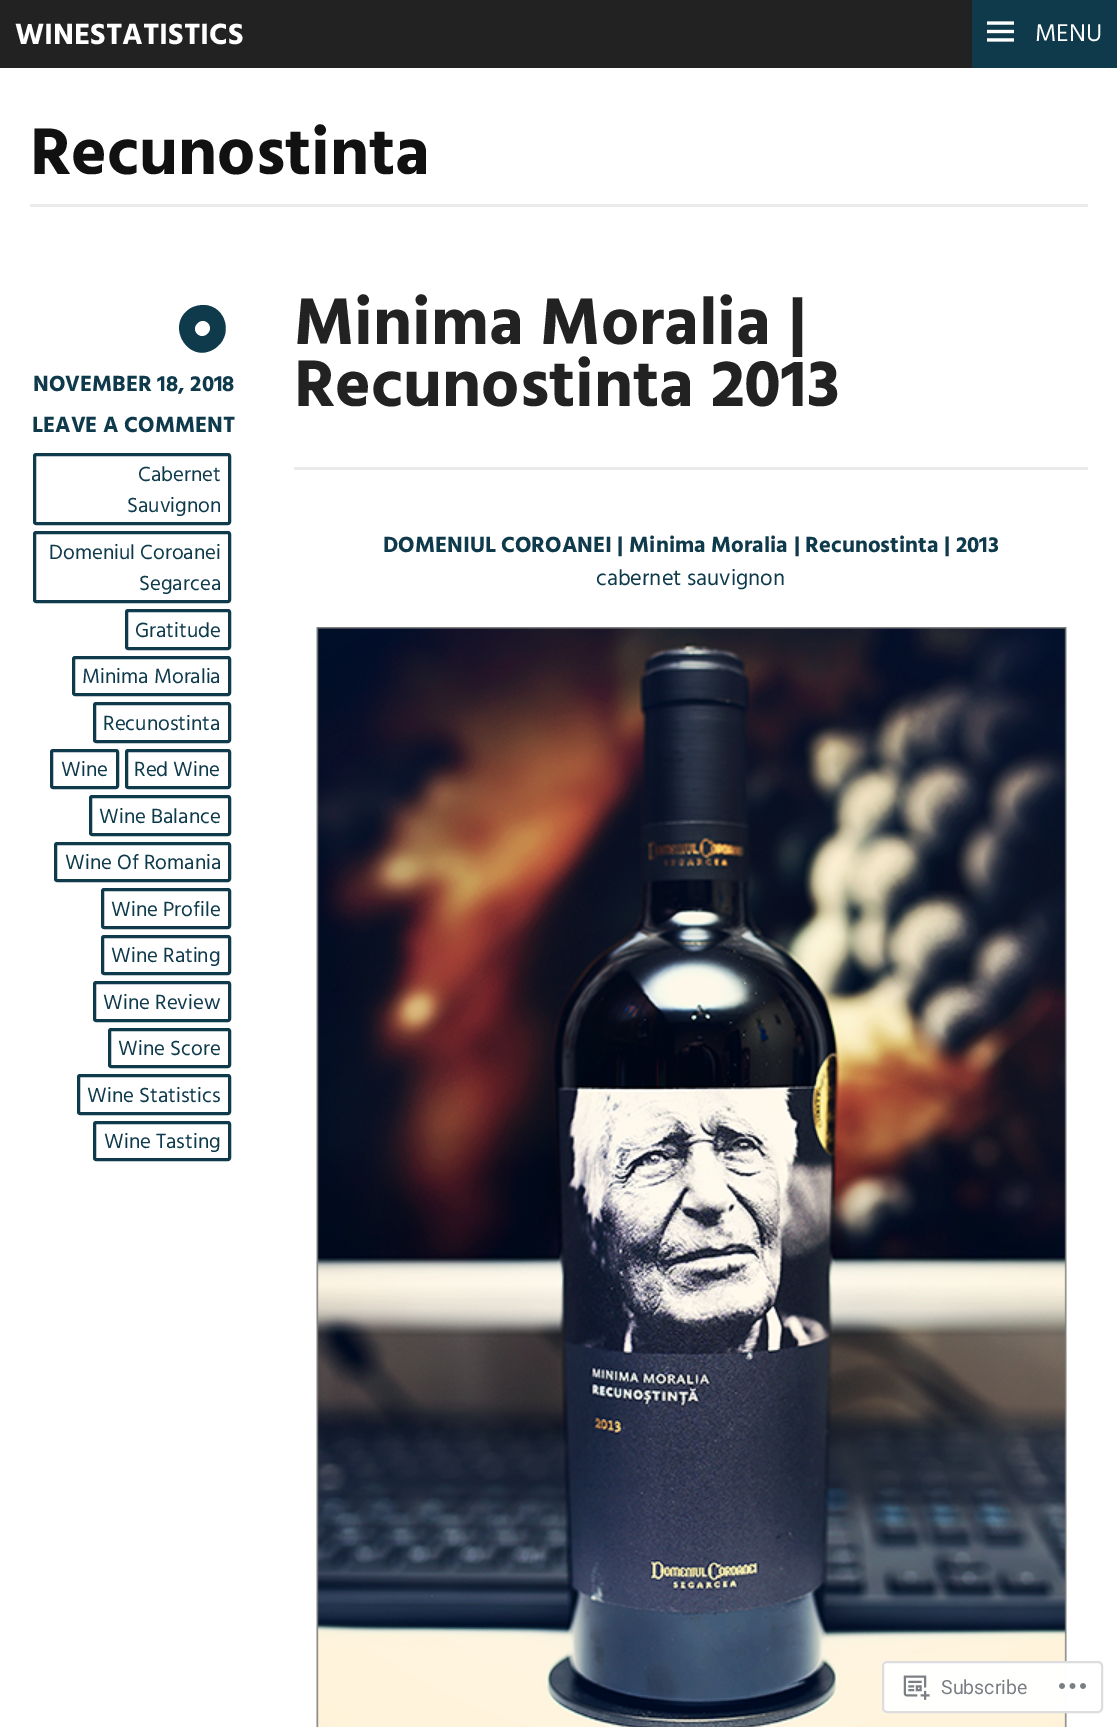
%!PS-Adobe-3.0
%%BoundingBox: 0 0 1117 1727
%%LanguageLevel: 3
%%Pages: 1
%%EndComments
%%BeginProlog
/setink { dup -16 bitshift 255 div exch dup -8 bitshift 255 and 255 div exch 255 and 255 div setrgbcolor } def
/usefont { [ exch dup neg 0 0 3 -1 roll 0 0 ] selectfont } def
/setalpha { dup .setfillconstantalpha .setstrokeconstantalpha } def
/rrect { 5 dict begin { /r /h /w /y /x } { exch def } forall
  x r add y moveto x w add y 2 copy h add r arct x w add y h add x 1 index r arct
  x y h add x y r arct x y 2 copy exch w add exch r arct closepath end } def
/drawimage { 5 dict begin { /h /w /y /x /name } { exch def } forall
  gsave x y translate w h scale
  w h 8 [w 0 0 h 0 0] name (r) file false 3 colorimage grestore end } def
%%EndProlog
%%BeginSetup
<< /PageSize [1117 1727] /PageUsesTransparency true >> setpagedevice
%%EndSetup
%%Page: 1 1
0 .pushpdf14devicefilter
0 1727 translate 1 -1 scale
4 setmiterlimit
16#FFFFFF setink
0 0 1117 1727 rectfill
16#222222 setink
0 0 972 68 rectfill
/Hind-Bold 30 usefont
16#FFFFFF setink
15 44 moveto (WINESTATISTICS) show
16#0E3A4B setink
972 0 145 68 rectfill
(img1.raw) 987 21 27 21 drawimage
/Hind-Regular 25 usefont
16#FFFFFF setink
1035 41 moveto (MENU) show
16#EBEBEB setink
30 204 1058 3 rectfill
/Hind-Bold 67.5 usefont
16#111111 setink
30 174 moveto (Recunostinta) show
16#0E3A4B setink
191 308 moveto 195 306 199 305 204 305 curveto 227 306 234 337 214 349 curveto 188 365 164 324 191 308 curveto closepath 197 334 moveto 204 341 215 330 208 323 curveto 201 316 190 327 197 334 curveto closepath fill
/Hind-Bold 22.45 usefont
33 391 moveto (NOVEMBER 18, 2018) show
32 432 moveto (LEAVE A COMMENT) show
3 setlinewidth
34.5 454.5 195 69 1.5 rrect stroke
/Hind-Regular 21 usefont
138 481 moveto (Cabernet) show
127 512 moveto (Sauvignon) show
34.5 532.5 195 69 1.5 rrect stroke
49 559 moveto (Domeniul Coroanei) show
139 590 moveto (Segarcea) show
126.5 610.5 103 38 1.5 rrect stroke
135 637 moveto (Gratitude) show
73.5 657.5 156 37 1.5 rrect stroke
82 683 moveto (Minima Moralia) show
94.5 703.5 135 38 1.5 rrect stroke
103 730 moveto (Recunostinta) show
51.5 750.5 66 37 1.5 rrect stroke
61 776 moveto (Wine) show
126.5 750.5 103 37 1.5 rrect stroke
134 776 moveto (Red Wine) show
90.5 796.5 139 38 1.5 rrect stroke
99 823 moveto (Wine Balance) show
55.5 843.5 174 37 1.5 rrect stroke
65 869 moveto (Wine Of Romania) show
102.5 889.5 127 38 1.5 rrect stroke
111 916 moveto (Wine Profile) show
102.5 936.5 127 37 1.5 rrect stroke
111 962 moveto (Wine Rating) show
94.5 982.5 135 38 1.5 rrect stroke
103 1009 moveto (Wine Review) show
109.5 1029.5 120 37 1.5 rrect stroke
118 1055 moveto (Wine Score) show
78.5 1075.5 151 38 1.5 rrect stroke
87 1102 moveto (Wine Statistics) show
94.5 1122.5 135 37 1.5 rrect stroke
104 1148 moveto (Wine Tasting) show
16#EBEBEB setink
294 467 794 3 rectfill
/Hind-Bold 67.5 usefont
16#222222 setink
294 344 moveto (Minima Moralia |) show
294 406 moveto (Recunostinta 2013) show
/Hind-Bold 22.45 usefont
16#0E3A4B setink
383 552 moveto (DOMENIUL COROANEI | Minima Moralia | Recunostinta | 2013) show
/Hind-Regular 22.45 usefont
596 585 moveto (cabernet sauvignon) show
(img2.raw) 316 627 751 1100 drawimage
0.98 setalpha
16#FFFFFF setink
882 1661 221 52 5 rrect fill
16#DCDCDE setink
2 setlinewidth
883 1662 219 50 4 rrect stroke
1 setalpha
(img3.raw) 903 1675 27 25 drawimage
/Roboto-Regular 19.5 usefont
16#7B7E84 setink
941 1694 moveto (Subscribe) show
(img4.raw) 1059 1683 27 6 drawimage
.poppdf14devicefilter showpage
%%EOF
